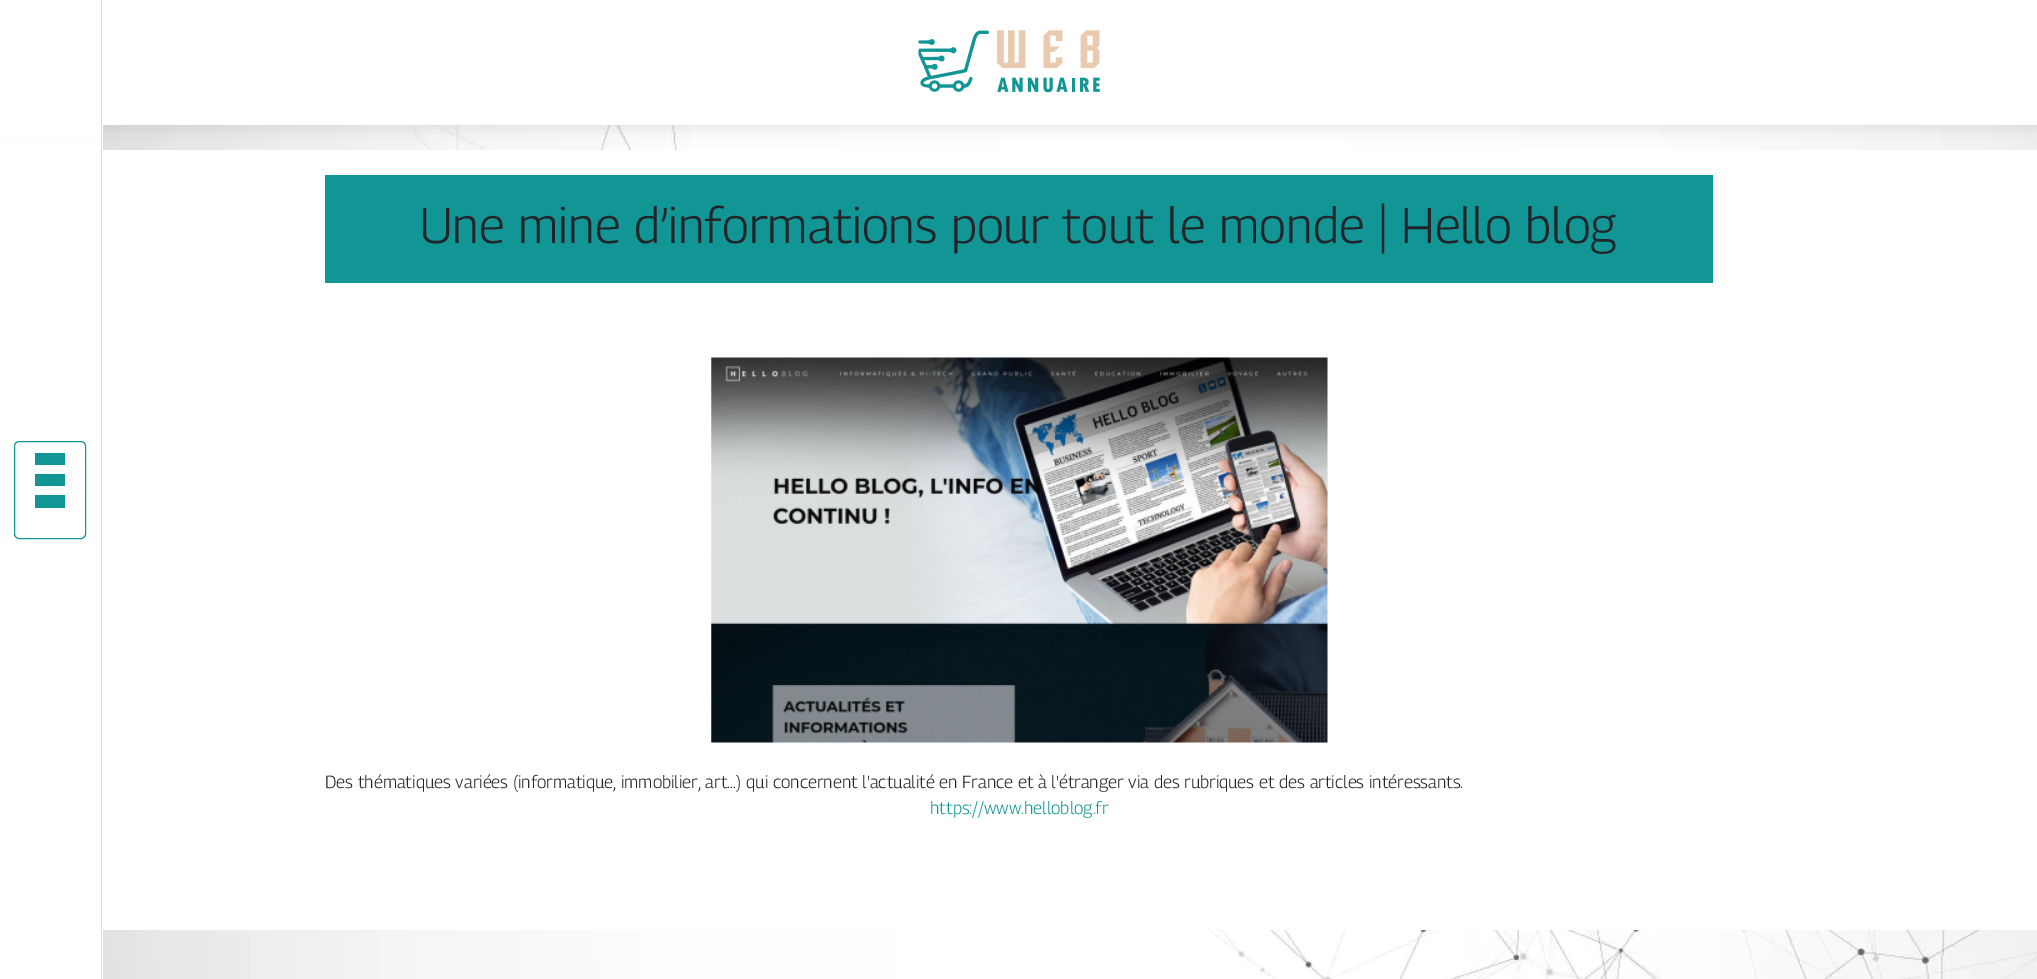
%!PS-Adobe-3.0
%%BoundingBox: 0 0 2037 979
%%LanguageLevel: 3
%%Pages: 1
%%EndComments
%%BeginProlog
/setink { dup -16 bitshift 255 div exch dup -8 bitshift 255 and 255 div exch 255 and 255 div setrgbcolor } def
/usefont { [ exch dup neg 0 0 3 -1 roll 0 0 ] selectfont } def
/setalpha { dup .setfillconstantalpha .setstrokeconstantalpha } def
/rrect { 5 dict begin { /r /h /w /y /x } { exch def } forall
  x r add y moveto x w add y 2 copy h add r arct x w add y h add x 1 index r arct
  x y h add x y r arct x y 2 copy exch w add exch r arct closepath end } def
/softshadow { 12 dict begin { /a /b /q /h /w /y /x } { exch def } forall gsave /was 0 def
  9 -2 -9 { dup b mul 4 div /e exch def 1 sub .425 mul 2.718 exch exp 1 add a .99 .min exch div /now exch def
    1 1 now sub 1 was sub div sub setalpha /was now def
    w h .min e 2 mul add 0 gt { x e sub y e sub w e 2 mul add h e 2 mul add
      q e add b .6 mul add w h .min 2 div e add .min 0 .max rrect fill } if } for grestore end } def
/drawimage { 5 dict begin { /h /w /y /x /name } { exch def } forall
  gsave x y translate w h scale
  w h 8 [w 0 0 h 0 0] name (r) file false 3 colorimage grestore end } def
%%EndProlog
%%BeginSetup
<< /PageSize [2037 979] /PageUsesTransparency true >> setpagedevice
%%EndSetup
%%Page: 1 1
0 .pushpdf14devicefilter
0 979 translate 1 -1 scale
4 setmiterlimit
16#FFFFFF setink
0 0 2037 979 rectfill
(img1.raw) 103 125 1934 854 drawimage
103 150 1934 780 rectfill
16#000000 setink
0 3 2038 125 0 8 0.1 softshadow
[
    [103 0 1934 125 16#FFFFFF]
    [0 0 103 138 16#FFFFFF]
    [101 0 1 979 16#DDDDDD]
] { aload pop setink rectfill } forall
16#119595 setink
14.5 441.5 71 97 4.5 rrect stroke
[
    [35 453 30 12 16#119595]
    [35 474 30 12 16#119595]
    [35 495 30 13 16#119595]
] { aload pop setink rectfill } forall
(img2.raw) 918 30 182 63 drawimage
325 175 1388 108 rectfill
/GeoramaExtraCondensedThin-Thin 50 usefont
16#212529 setink
420 243 moveto (Une mine d’informations pour tout le monde | Hello blog) show
(img3.raw) 711 357 617 386 drawimage
/GeoramaExtraCondensedThin-Thin 17.5 usefont
325 788 moveto (Des thématiques variées \(informatique, immobilier, art…\) qui concernent l'actualité en France et à l'étranger via des rubriques et des articles intéressants.) show
16#119595 setink
930 814 moveto (https://www.helloblog.fr) show
.poppdf14devicefilter showpage
%%EOF
